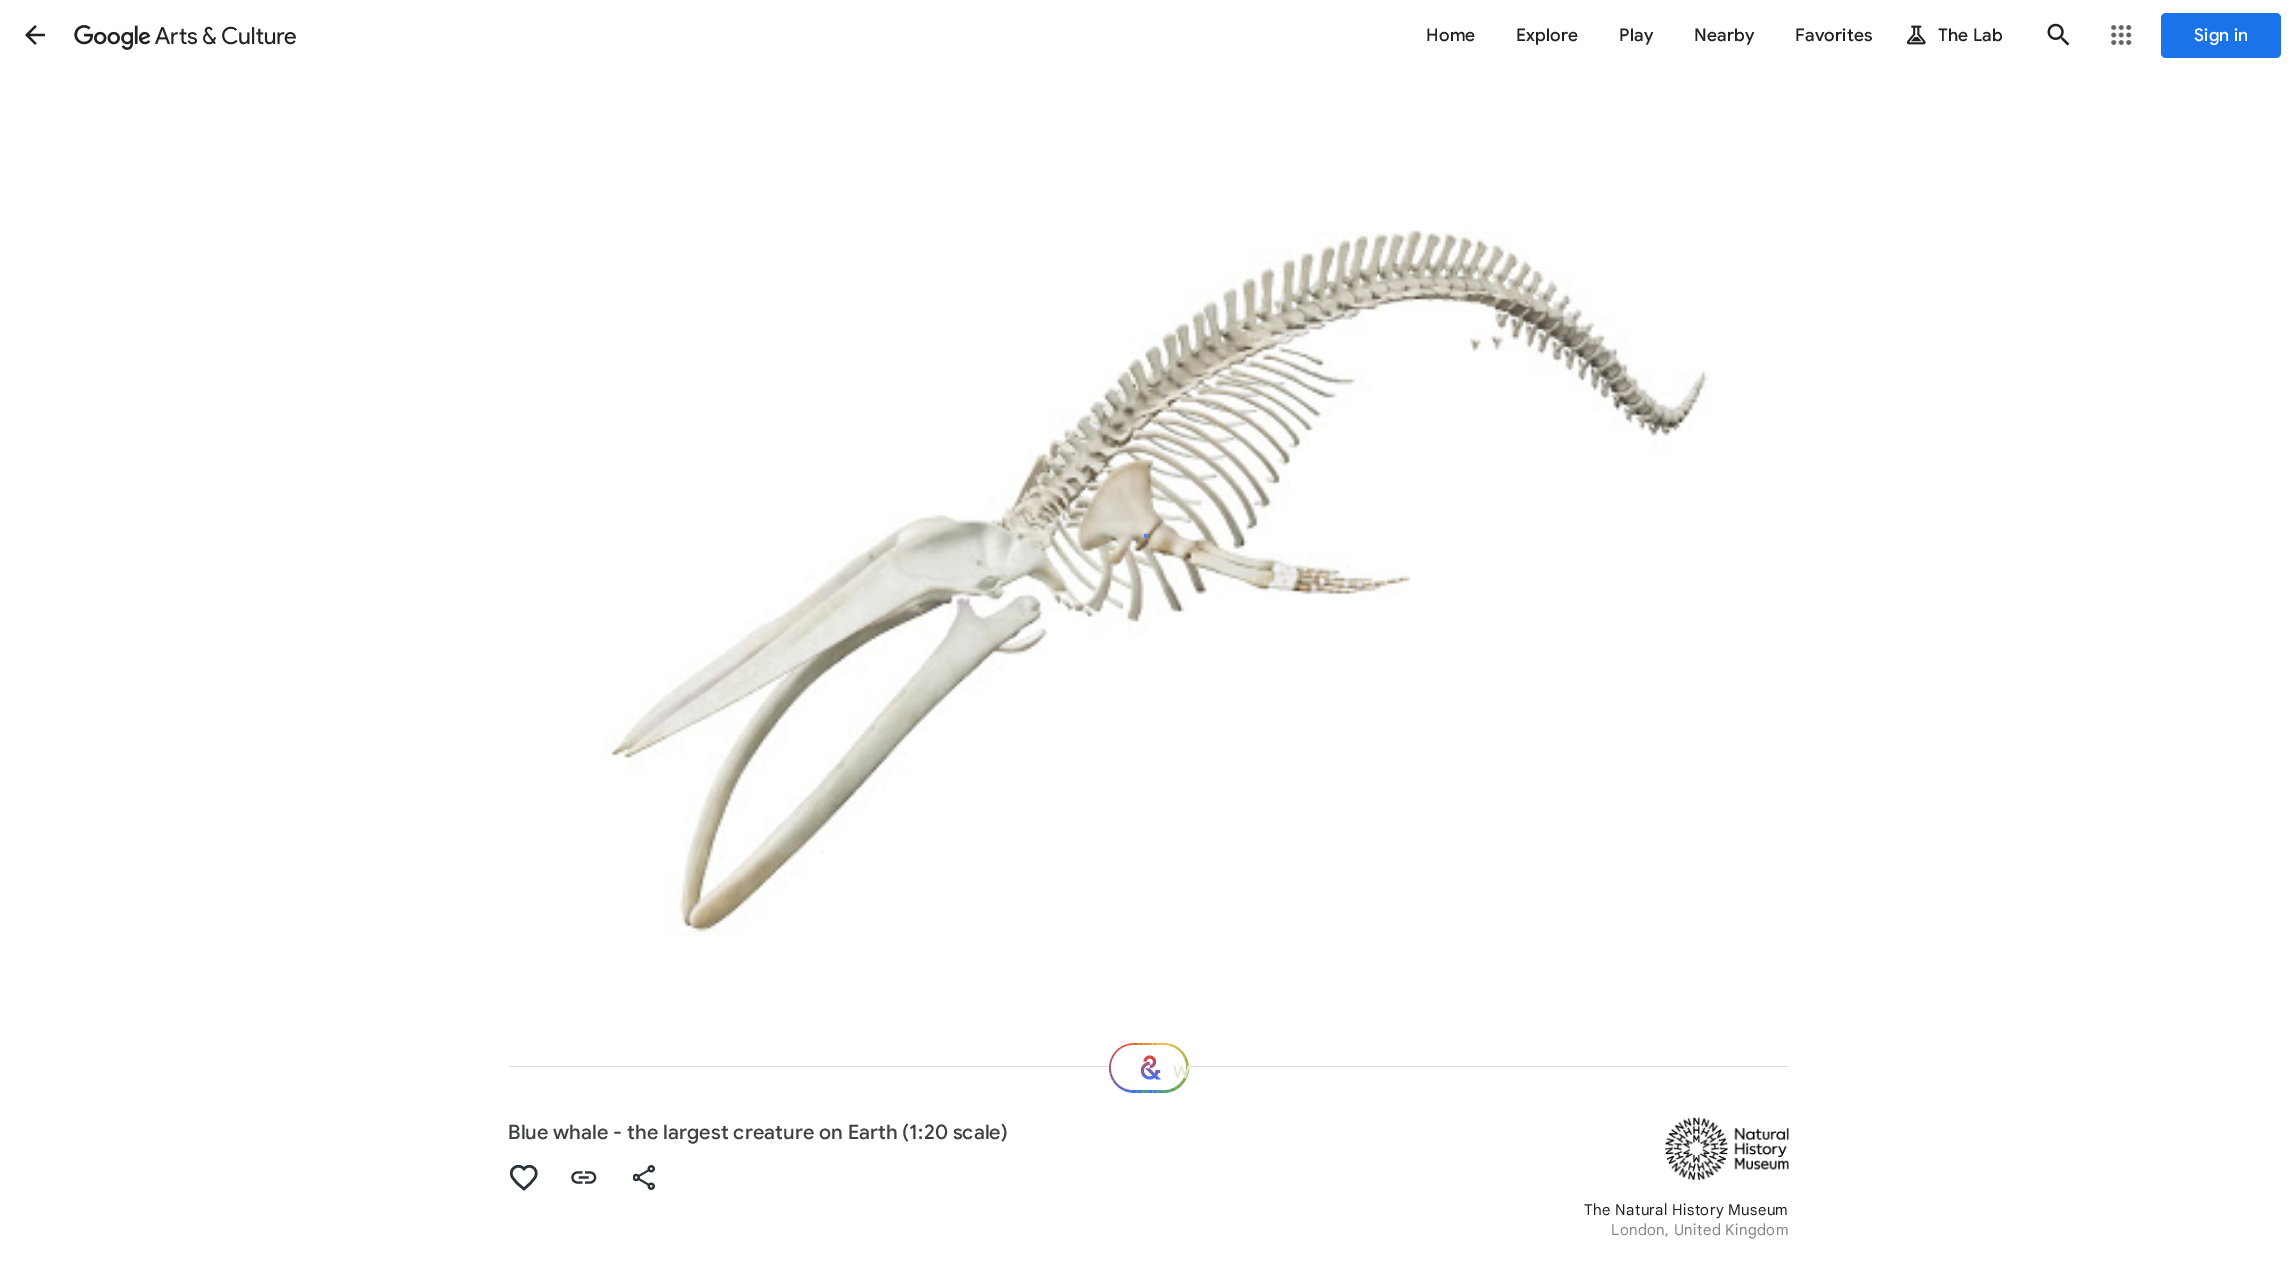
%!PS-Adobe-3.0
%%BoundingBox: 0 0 2296 1288
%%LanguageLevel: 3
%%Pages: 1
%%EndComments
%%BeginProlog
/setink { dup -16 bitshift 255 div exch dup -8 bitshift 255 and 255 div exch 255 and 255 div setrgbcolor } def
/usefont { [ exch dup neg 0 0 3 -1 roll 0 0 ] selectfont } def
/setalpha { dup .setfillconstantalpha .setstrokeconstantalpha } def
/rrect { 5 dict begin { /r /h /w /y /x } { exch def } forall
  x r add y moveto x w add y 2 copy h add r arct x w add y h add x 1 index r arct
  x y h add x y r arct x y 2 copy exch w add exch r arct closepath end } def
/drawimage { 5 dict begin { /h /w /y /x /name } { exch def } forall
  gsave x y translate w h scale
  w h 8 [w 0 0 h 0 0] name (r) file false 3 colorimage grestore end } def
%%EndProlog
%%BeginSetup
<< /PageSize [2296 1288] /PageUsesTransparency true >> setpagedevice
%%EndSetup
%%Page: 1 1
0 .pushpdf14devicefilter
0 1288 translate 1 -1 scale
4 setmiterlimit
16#FFFFFF setink
0 0 2296 1288 rectfill
(img1.raw) 25 25 20 20 drawimage
(img2.raw) 74 25 222 25 drawimage
/GoogleSans-Medium 17.5 usefont
16#202124 setink
1426 41 moveto 0.25 0 (Home) ashow
1516 41 moveto 0.25 0 (Explore) ashow
1619 41 moveto 0.25 0 (Play) ashow
1694 41 moveto 0.25 0 (Nearby) ashow
1795 41 moveto 0.25 0 (Favorites) ashow
(img3.raw) 1906 25 20 20 drawimage
1938 41 moveto 0.25 0 (The Lab) ashow
(img4.raw) 2047 23 23 23 drawimage
(img5.raw) 2111 25 21 20 drawimage
16#1A73E8 setink
2161 13 120 45 5 rrect fill
16#FFFFFF setink
2194 41 moveto 0.25 0 (Sign in) ashow
(img6.raw) 604 230 1108 706 drawimage
gsave
1129 534 17 35 rectclip
0.99 setalpha
16#4285F4 setink
3.7 setlinewidth
1144.5 535 moveto 1147.5 535 1150.5 535.5 1153 537 curveto 1166.5 544.5 1162 565 1147 566.5 curveto stroke
grestore
gsave
1144 534 4 35 rectclip
0.99 setalpha
16#4285F4 setink
3.8 setlinewidth
1135 562.5 moveto 1131.5 558.5 1130 553 1131 548 curveto 1131.5 544 1134 540.5 1137.5 538.5 curveto 1152.5 527.5 1168.5 549.5 1156 562.5 curveto stroke
grestore
16#DADCE0 setink
509 1066 1280 1 rectfill
(img7.raw) 1109 1043 80 50 drawimage
16#FFFFFF setink
1111 1045 75 45 22.5 rrect fill
(img8.raw) 1140 1055 21 25 drawimage
gsave
1109 1043 80 50 25 rrect clip newpath
16#E3EAD1 setink
1173 1078 moveto (W) show
grestore
/GoogleSans-Medium 20 usefont
16#3C4043 setink
508 1139 moveto 0.12 0 (Blue whale - the largest creature on Earth \(1:20 scale\)) ashow
16#263238 setink
2.5 setlinewidth
524 1189 moveto 519.5 1185.5 514.5 1181.5 512 1176.5 curveto 508.5 1168.5 518.5 1162.5 524 1169 curveto 529 1162.5 539 1168.5 535.5 1176.5 curveto 533 1181.5 528 1185.5 524 1189 curveto closepath stroke
(img9.raw) 571 1171 26 13 drawimage
(img10.raw) 633 1165 22 25 drawimage
(img11.raw) 1665 1117 124 63 drawimage
/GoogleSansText-Regular 15 usefont
16#202124 setink
1584 1215 moveto 0.4 0 (The Natural History Museum) ashow
16#80868B setink
1611 1235 moveto 0.4 0 (London, United Kingdom) ashow
.poppdf14devicefilter showpage
%%EOF
